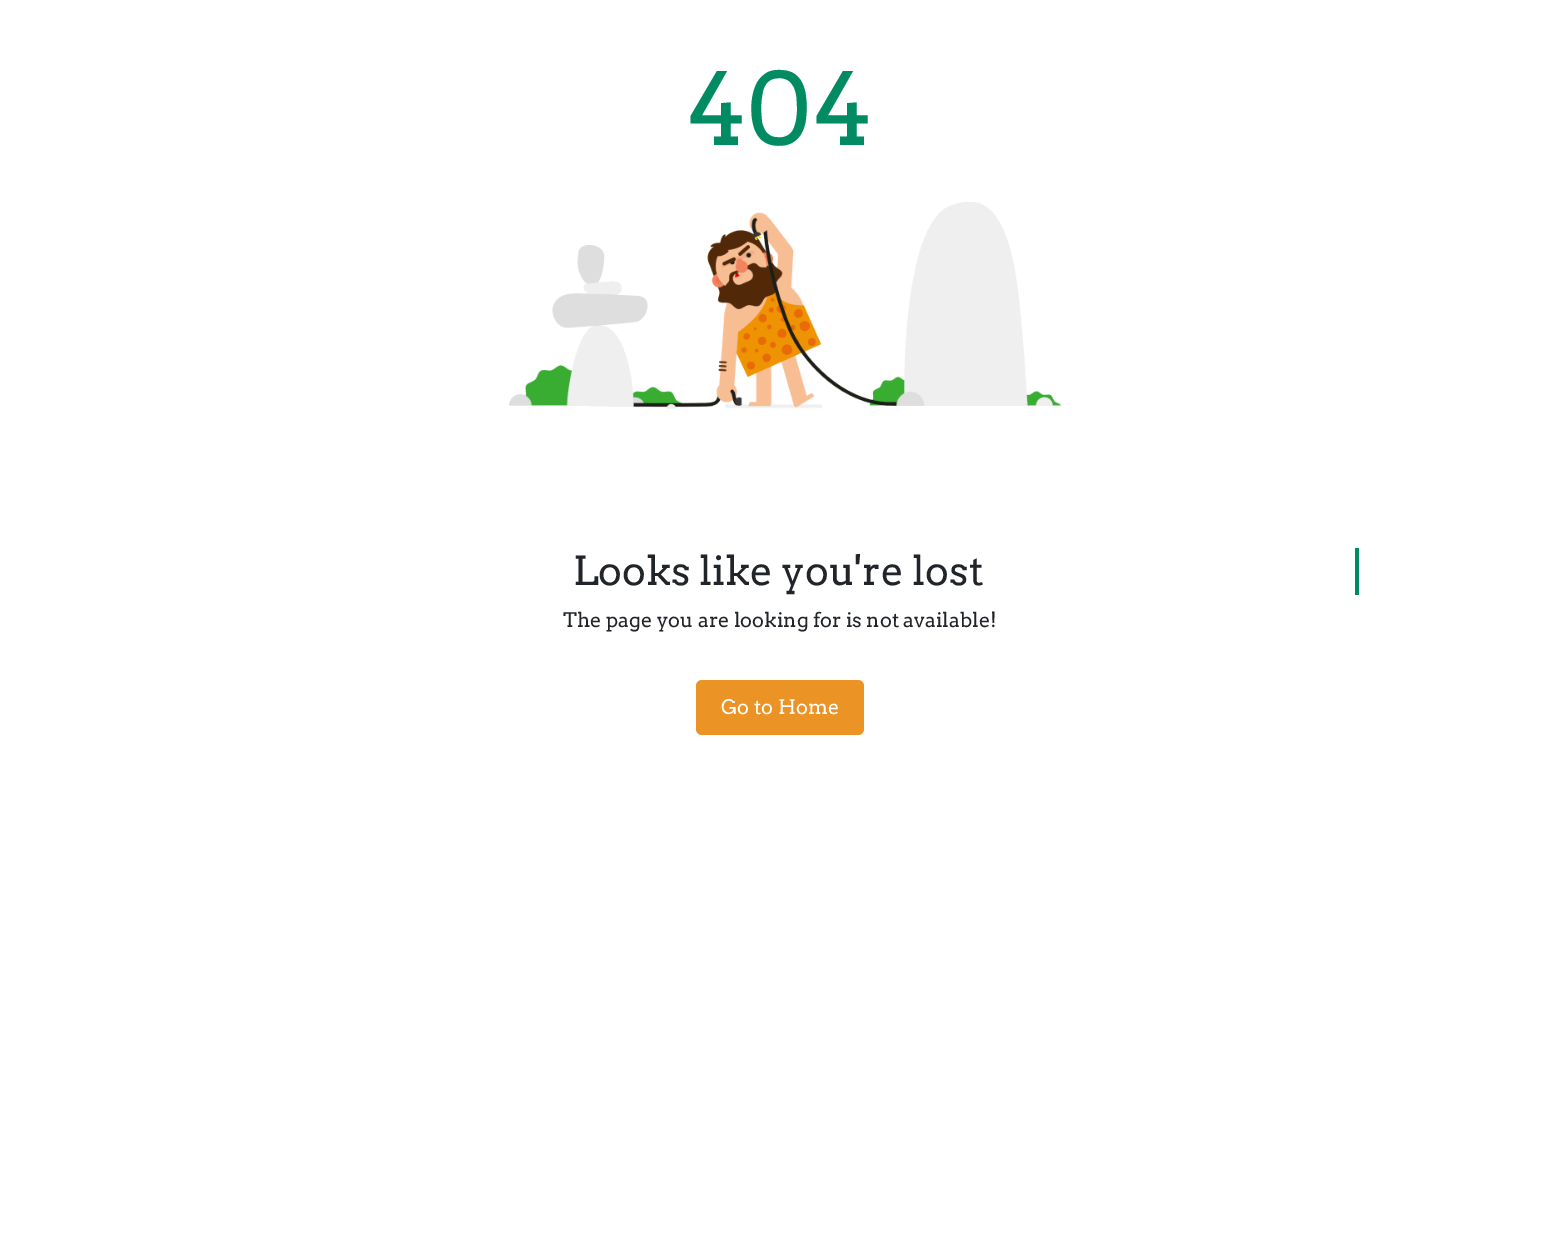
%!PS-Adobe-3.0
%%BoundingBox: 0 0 1560 1254
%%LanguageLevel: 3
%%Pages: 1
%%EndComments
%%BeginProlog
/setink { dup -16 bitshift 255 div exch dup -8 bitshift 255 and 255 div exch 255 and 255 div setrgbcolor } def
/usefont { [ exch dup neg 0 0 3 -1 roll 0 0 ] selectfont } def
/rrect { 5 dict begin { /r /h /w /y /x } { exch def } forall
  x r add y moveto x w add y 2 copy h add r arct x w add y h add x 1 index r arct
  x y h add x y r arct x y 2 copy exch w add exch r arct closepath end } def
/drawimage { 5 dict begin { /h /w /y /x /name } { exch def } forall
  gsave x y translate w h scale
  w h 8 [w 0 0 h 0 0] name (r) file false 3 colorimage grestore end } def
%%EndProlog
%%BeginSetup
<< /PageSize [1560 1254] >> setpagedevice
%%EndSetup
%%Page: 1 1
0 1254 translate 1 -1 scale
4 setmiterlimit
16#FFFFFF setink
0 0 1560 1254 rectfill
(img1.raw) 509 202 553 207 drawimage
/Arvo-Regular 100 usefont
16#008B62 setink
686 145 moveto (404) show
1355 548 4 47 rectfill
/Arvo-Regular 40 usefont
16#212529 setink
573 585 moveto (Looks like you're lost) show
/Arvo-Regular 20 usefont
563 627 moveto (The page you are looking for is not available!) show
16#EB9324 setink
696 680 168 55 6 rrect fill
16#FFFFFF setink
721 714 moveto (Go to Home) show
showpage
%%EOF
